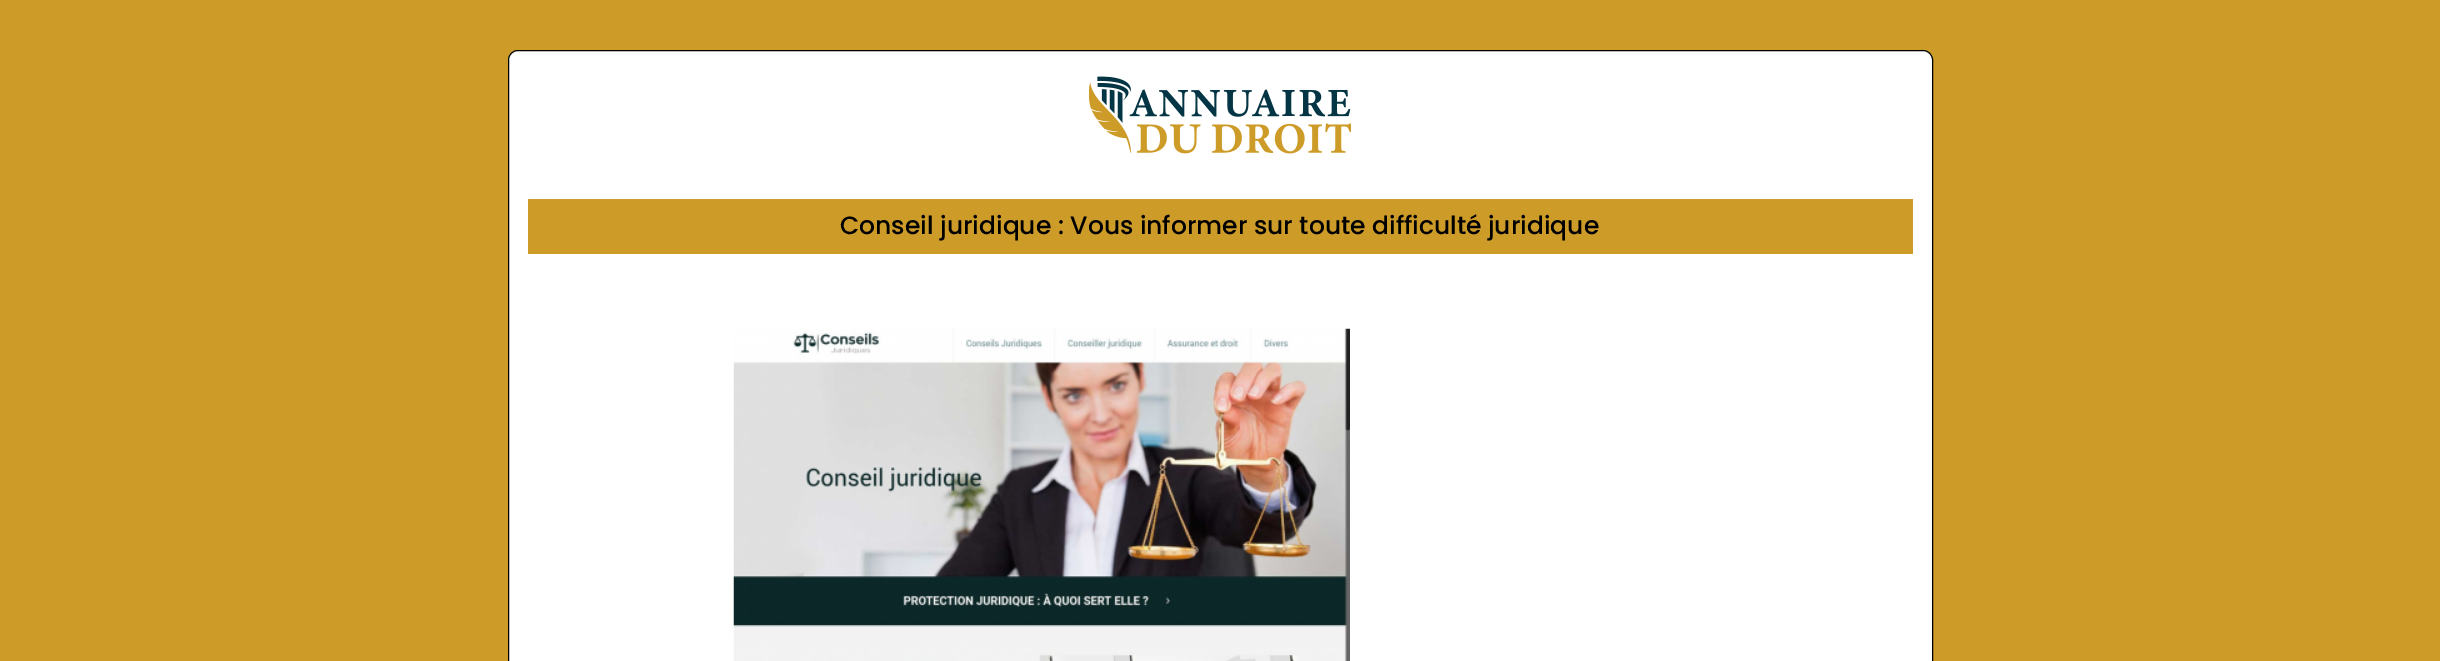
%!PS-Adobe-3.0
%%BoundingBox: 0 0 2440 661
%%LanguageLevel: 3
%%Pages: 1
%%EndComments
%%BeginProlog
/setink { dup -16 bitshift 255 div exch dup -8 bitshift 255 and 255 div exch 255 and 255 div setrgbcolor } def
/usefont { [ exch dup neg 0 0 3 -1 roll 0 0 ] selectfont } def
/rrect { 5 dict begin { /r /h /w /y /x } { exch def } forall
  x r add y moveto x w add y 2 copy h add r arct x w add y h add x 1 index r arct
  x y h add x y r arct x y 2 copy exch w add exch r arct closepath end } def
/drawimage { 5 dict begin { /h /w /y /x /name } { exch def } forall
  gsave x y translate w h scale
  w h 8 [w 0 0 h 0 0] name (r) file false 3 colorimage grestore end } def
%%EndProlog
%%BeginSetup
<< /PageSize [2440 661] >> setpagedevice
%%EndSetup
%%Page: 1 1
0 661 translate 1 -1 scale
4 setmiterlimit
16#CD9B28 setink
0 0 2440 661 rectfill
16#FFFFFF setink
508.5 50.5 1424 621 9.5 rrect gsave fill grestore
16#000000 setink
stroke
(img1.raw) 1089 76 262 78 drawimage
16#CD9B28 setink
528 199 1385 55 rectfill
/Poppins-Medium 25 usefont
16#000000 setink
840 234 moveto (Conseil juridique : Vous informer sur toute difficulté juridique) show
(img2.raw) 733 328 617 333 drawimage
showpage
%%EOF
